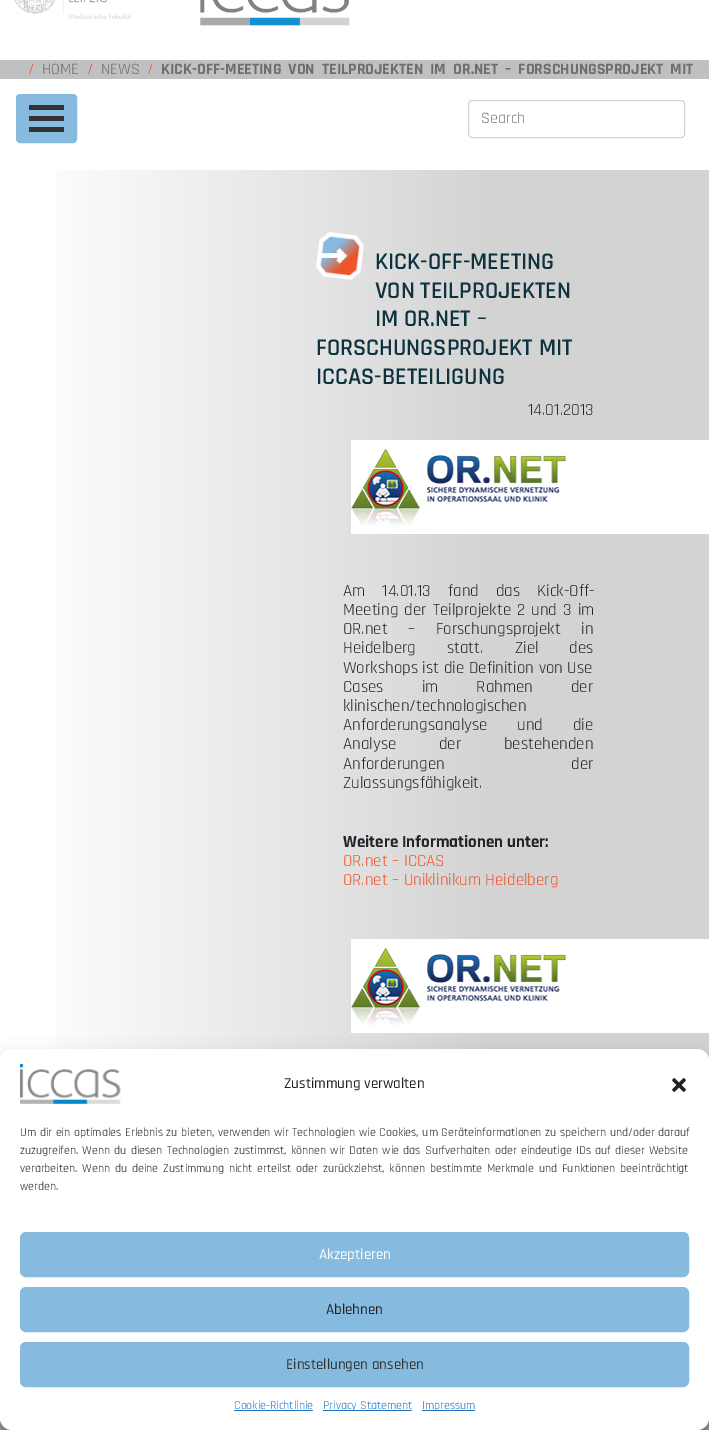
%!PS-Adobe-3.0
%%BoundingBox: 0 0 709 1430
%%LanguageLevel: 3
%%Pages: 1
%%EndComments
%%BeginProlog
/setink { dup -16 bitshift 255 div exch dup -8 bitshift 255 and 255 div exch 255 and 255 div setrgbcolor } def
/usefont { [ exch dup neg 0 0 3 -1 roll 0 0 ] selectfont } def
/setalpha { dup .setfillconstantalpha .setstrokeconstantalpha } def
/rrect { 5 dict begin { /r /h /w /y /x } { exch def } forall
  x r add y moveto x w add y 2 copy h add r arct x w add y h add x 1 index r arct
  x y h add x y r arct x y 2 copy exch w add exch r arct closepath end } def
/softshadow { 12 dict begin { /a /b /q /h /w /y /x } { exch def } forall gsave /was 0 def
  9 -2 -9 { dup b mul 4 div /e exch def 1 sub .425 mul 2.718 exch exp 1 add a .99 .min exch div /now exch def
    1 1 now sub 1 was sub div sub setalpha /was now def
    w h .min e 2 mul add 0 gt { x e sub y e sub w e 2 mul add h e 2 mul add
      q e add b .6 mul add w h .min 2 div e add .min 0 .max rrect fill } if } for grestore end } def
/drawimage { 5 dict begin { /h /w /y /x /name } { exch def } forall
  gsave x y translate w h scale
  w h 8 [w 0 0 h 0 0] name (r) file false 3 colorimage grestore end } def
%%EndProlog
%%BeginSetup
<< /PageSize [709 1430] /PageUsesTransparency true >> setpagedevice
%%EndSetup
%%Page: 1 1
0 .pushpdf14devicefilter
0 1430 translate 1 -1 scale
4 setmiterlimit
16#FFFFFF setink
0 0 709 1430 rectfill
(img1.raw) 14 0 117 19 drawimage
(img2.raw) 200 0 150 26 drawimage
16#BFC0C1 setink
0 60 709 19 rectfill
/Rajdhani-Regular 16 usefont
16#EE5427 setink
28 74 moveto (/) show
16#6F6E6F setink
42 74 moveto (HOME) show
16#EE5427 setink
87 74 moveto (/) show
16#6F6E6F setink
101 74 moveto (NEWS) show
16#EE5427 setink
147 74 moveto (/) show
/Rajdhani-Bold 16 usefont
16#6F6E6F setink
161 74 moveto 3.5 0 32 (KICK-OFF-MEETING VON TEILPROJEKTEN IM OR.NET – FORSCHUNGSPROJEKT MIT) widthshow
16#86BBDF setink
16.5 94.5 60 48 3.5 rrect gsave fill grestore
stroke
[
    [29 105 35 5 16#333333]
    [29 116 35 5 16#333333]
    [29 127 35 5 16#333333]
] { aload pop setink rectfill } forall
16#CED4DA setink
468.5 100.5 216 37 3.5 rrect stroke
/Rajdhani-Regular 16 usefont
16#6C757D setink
481 123 moveto (Search) show
gsave 55 170 moveto 709 170 lineto 709 1061 lineto 55 1061 lineto closepath clip newpath
<< /ShadingType 2 /ColorSpace /DeviceRGB /Coords [0 793 709 793] /Extend [true true] /Function << /FunctionType 3 /Domain [0 1] /Functions [<< /FunctionType 2 /Domain [0 1] /C0 [1 1 1] /C1 [1 1 1] /N 1 >> << /FunctionType 2 /Domain [0 1] /C0 [1 1 1] /C1 [0.827 0.827 0.827] /N 1 >> << /FunctionType 2 /Domain [0 1] /C0 [0.827 0.827 0.827] /C1 [0.827 0.827 0.827] /N 1 >>] /Bounds [0.04 0.7] /Encode [0 1 0 1 0 1] >> >> shfill grestore
(img3.raw) 316 232 48 48 drawimage
/Rajdhani-SemiBold 24 usefont
16#0E323E setink
[
    [(KICK-OFF-MEETING) 375 269]
    [(VON TEILPROJEKTEN) 375 298]
    [(IM OR.NET –) 375 326]
    [(FORSCHUNGSPROJEKT MIT) 316 355]
    [(ICCAS-BETEILIGUNG) 316 384]
] { aload pop moveto show } forall
/Rajdhani-Regular 17 usefont
16#212529 setink
528 415 moveto (14.01.2013) show
(img4.raw) 351 440 358 94 drawimage
343 596 moveto 12.5 0 32 (Am 14.01.13 fand das Kick-Off-) widthshow
343 615 moveto 1.5 0 32 (Meeting der Teilprojekte 2 und 3 im) widthshow
343 634 moveto 16 0 32 (OR.net – Forschungsprojekt in) widthshow
343 653 moveto 26 0 32 (Heidelberg statt.) widthshow
515 653 moveto 26 0 32 (Ziel des) widthshow
343 673 moveto (Workshops ist die Definition von Use) show
343 692 moveto 33.5 0 32 (Cases im Rahmen der) widthshow
343 711 moveto (klinischen/technologischen) show
343 730 moveto 25 0 32 (Anforderungsanalyse und die) widthshow
343 749 moveto 38 0 32 (Analyse der bestehenden) widthshow
343 769 moveto 122 0 32 (Anforderungen der) widthshow
343 788 moveto (Zulassungsfähigkeit.) show
/Rajdhani-Bold 17 usefont
343 847 moveto (Weitere Informationen unter:) show
/Rajdhani-Regular 17 usefont
16#EE5427 setink
343 866 moveto (OR.net – ICCAS) show
343 885 moveto (OR.net – Uniklinikum Heidelberg) show
(img4.raw) 351 939 358 94 drawimage
16#A7A6A6 setink
0 1418 709 12 rectfill
16#000000 setink
0 1055 709 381 12 3 0.23 softshadow
0 1059 709 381 12 10 0.19 softshadow
16#FFFFFF setink
0 1049 709 381 12 rrect fill
(img5.raw) 20 1064 101 40 drawimage
/Rajdhani-Medium 15 usefont
16#222222 setink
284 1088 moveto (Zustimmung verwalten) show
(img6.raw) 672 1078 14 14 drawimage
/Rajdhani-Regular 12 usefont
20 1136 moveto 0.5 0 32 (Um dir ein optimales Erlebnis zu bieten, verwenden wir Technologien wie Cookies, um Geräteinformationen zu speichern und/oder darauf) widthshow
20 1154 moveto 1.1 0 32 (zuzugreifen. Wenn du diesen Technologien zustimmst, können wir Daten wie das Surfverhalten oder eindeutige IDs auf dieser Website) widthshow
20 1172 moveto 1.75 0 32 (verarbeiten. Wenn du deine Zustimmung nicht erteilst oder zurückziehst, können bestimmte Merkmale und Funktionen beeinträchtigt) widthshow
20 1190 moveto (werden.) show
16#86BBDF setink
20.5 1232.5 668 44 5.5 rrect gsave fill grestore
stroke
/Rajdhani-Medium 15 usefont
16#FFFFFF setink
319 1259 moveto (Akzeptieren) show
16#86BBDF setink
20.5 1287.5 668 44 5.5 rrect gsave fill grestore
stroke
16#222222 setink
326 1314 moveto (Ablehnen) show
16#86BBDF setink
20.5 1342.5 668 44 5.5 rrect gsave fill grestore
stroke
16#333333 setink
286 1369 moveto (Einstellungen ansehen) show
/Rajdhani-Regular 12 usefont
16#1E73BE setink
234 1409 moveto (Cookie-Richtlinie) show
234 1410 79 1 rectfill
323 1410 89 1 rectfill
323 1409 moveto (Privacy Statement) show
422 1410 53 1 rectfill
422 1409 moveto (Impressum) show
.poppdf14devicefilter showpage
%%EOF
